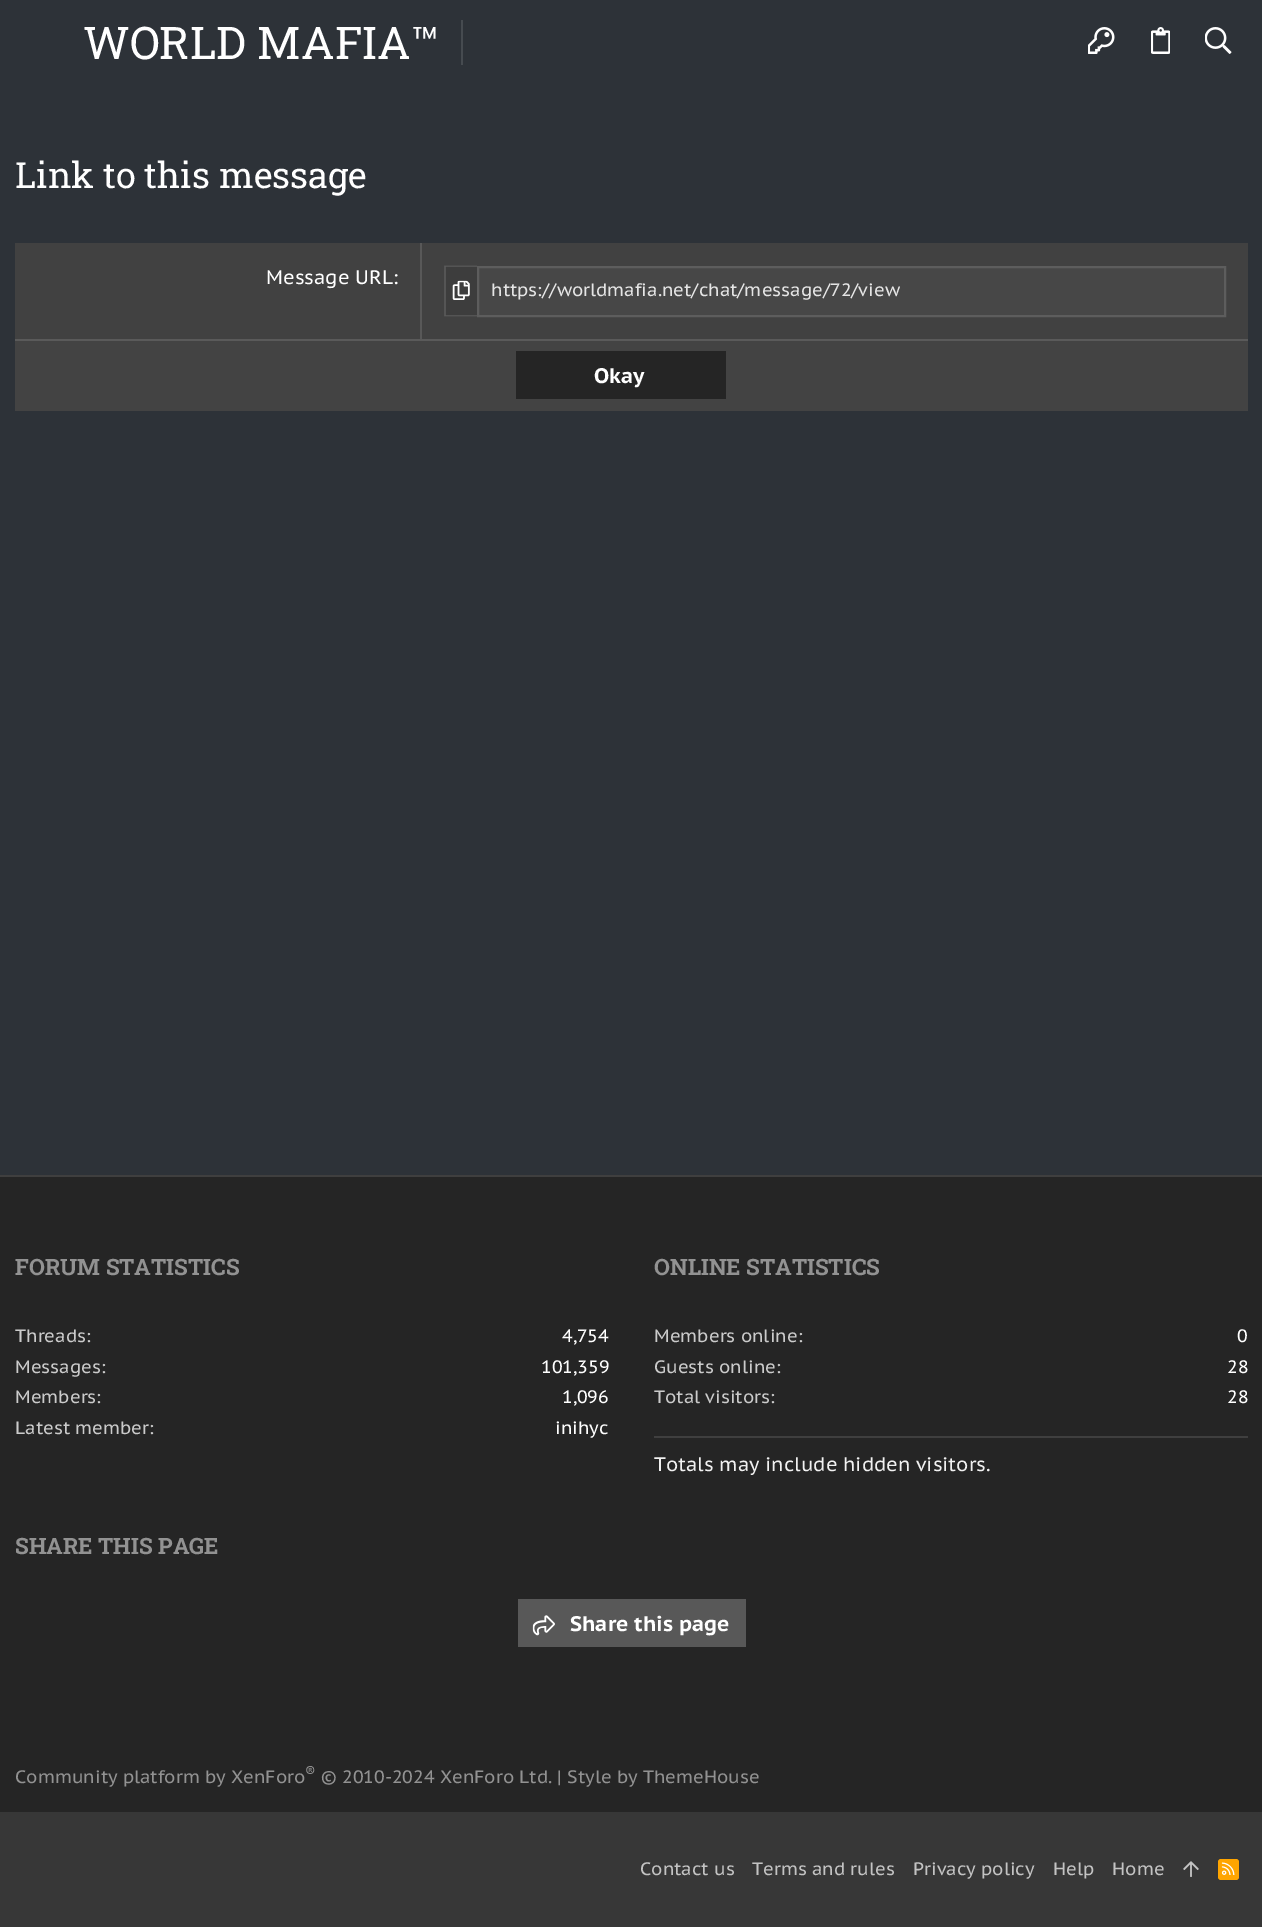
%!PS-Adobe-3.0
%%BoundingBox: 0 0 1262 1927
%%LanguageLevel: 3
%%Pages: 1
%%EndComments
%%BeginProlog
/setink { dup -16 bitshift 255 div exch dup -8 bitshift 255 and 255 div exch 255 and 255 div setrgbcolor } def
/usefont { [ exch dup neg 0 0 3 -1 roll 0 0 ] selectfont } def
/setalpha { dup .setfillconstantalpha .setstrokeconstantalpha } def
/rrect { 5 dict begin { /r /h /w /y /x } { exch def } forall
  x r add y moveto x w add y 2 copy h add r arct x w add y h add x 1 index r arct
  x y h add x y r arct x y 2 copy exch w add exch r arct closepath end } def
/drawimage { 5 dict begin { /h /w /y /x /name } { exch def } forall
  gsave x y translate w h scale
  w h 8 [w 0 0 h 0 0] name (r) file false 3 colorimage grestore end } def
%%EndProlog
%%BeginSetup
<< /PageSize [1262 1927] /PageUsesTransparency true >> setpagedevice
%%EndSetup
%%Page: 1 1
0 .pushpdf14devicefilter
0 1927 translate 1 -1 scale
4 setmiterlimit
16#2D3238 setink
0 0 1262 1927 rectfill
16#464B50 setink
461 20 2 45 rectfill
/RobotoSlab-Regular 45 usefont
16#FFFFFF setink
83 59 moveto (WORLD MAFIA™) show
(img1.raw) 1088 27 27 27 drawimage
(img2.raw) 1151 27 19 27 drawimage
(img3.raw) 1205 27 27 27 drawimage
/RobotoSlab-Regular 36 usefont
15 188 moveto (Link to this message) show
16#414141 setink
15 243 1233 96 rectfill
16#585858 setink
420 243 2 96 rectfill
/PTSansCaption-Regular 19.5 usefont
16#FFFFFF setink
266 284 moveto (Message URL:) show
16#3D3D3D setink
444 266 33 51 rectfill
16#545454 setink
444 265.5 moveto 477 265.5 lineto 477 267 lineto 445.5 267 lineto closepath 477 316.5 moveto 444 316.5 lineto 445.5 315 lineto 477 315 lineto closepath fill
0.12 setalpha
16#FFFFFF setink
444 316 moveto 444 266 lineto 446 267 lineto 446 315 lineto closepath fill
1 setalpha
(img4.raw) 452 280 18 20 drawimage
16#474747 setink
478 267 moveto 1225 267 lineto 1225 316 lineto 478 316 lineto closepath gsave fill grestore
16#5D5D5D setink
2 setlinewidth
stroke
/PTSansCaption-Regular 18 usefont
16#E5E5E5 setink
491 296 moveto (https://worldmafia.net/chat/message/72/view) show
[
    [15 341 1233 70 16#434343]
    [15 339 1233 2 16#5A5A5A]
    [516 351 210 48 16#252525]
] { aload pop setink rectfill } forall
/PTSansCaption-Bold 21 usefont
16#FFFFFF setink
594 383 moveto (Okay) show
16#252525 setink
0 1177 1262 635 rectfill
16#3F3F3F setink
0 1175 1262 2 rectfill
/RobotoSlab-Bold 22.5 usefont
16#929292 setink
15 1275 moveto (FORUM STATISTICS) show
/PTSansCaption-Regular 18 usefont
16#CBCBCB setink
15 1342 moveto (Threads:) show
16#FFFFFF setink
562 1342 moveto (4,754) show
16#CBCBCB setink
15 1373 moveto (Messages:) show
16#FFFFFF setink
541 1373 moveto (101,359) show
16#CBCBCB setink
15 1403 moveto (Members:) show
16#FFFFFF setink
562 1403 moveto (1,096) show
16#CBCBCB setink
15 1434 moveto (Latest member:) show
16#FFFFFF setink
555 1434 moveto (inihyc) show
/RobotoSlab-Bold 22.5 usefont
16#929292 setink
654 1275 moveto (ONLINE STATISTICS) show
/PTSansCaption-Regular 18 usefont
16#CBCBCB setink
654 1342 moveto (Members online:) show
16#FFFFFF setink
1237 1342 moveto (0) show
16#CBCBCB setink
654 1373 moveto (Guests online:) show
16#FFFFFF setink
1227 1373 moveto (28) show
16#CBCBCB setink
654 1403 moveto (Total visitors:) show
16#FFFFFF setink
1227 1403 moveto (28) show
16#3F3F3F setink
654 1436 594 2 rectfill
/PTSansCaption-Regular 19.5 usefont
16#F1F1F1 setink
654 1471 moveto (Totals may include hidden visitors.) show
/RobotoSlab-Bold 22.5 usefont
16#929292 setink
15 1554 moveto (SHARE THIS PAGE) show
16#585858 setink
518 1599 228 48 rectfill
(img5.raw) 532 1615 23 21 drawimage
/PTSansCaption-Bold 21 usefont
16#FFFFFF setink
570 1631 moveto (Share this page) show
/PTSansCaption-Regular 18 usefont
16#929292 setink
15 1783 moveto (Community platform by XenForo) show
/PTSansCaption-Regular 14 usefont
305 1776 moveto (®) show
/PTSansCaption-Regular 18 usefont
321 1783 moveto (© 2010-2024 XenForo Ltd. | Style by ThemeHouse) show
16#373737 setink
0 1812 1262 115 rectfill
16#C3C3C3 setink
[
    [(Contact us) 640 1875]
    [(Terms and rules) 752 1875]
    [(Privacy policy) 913 1875]
    [(Help) 1053 1875]
    [(Home) 1112 1875]
] { aload pop moveto show } forall
(img6.raw) 1183 1861 16 16 drawimage
16#FFA500 setink
1218 1859 21 21 3 rrect fill
(img7.raw) 1221 1862 14 13 drawimage
.poppdf14devicefilter showpage
%%EOF
